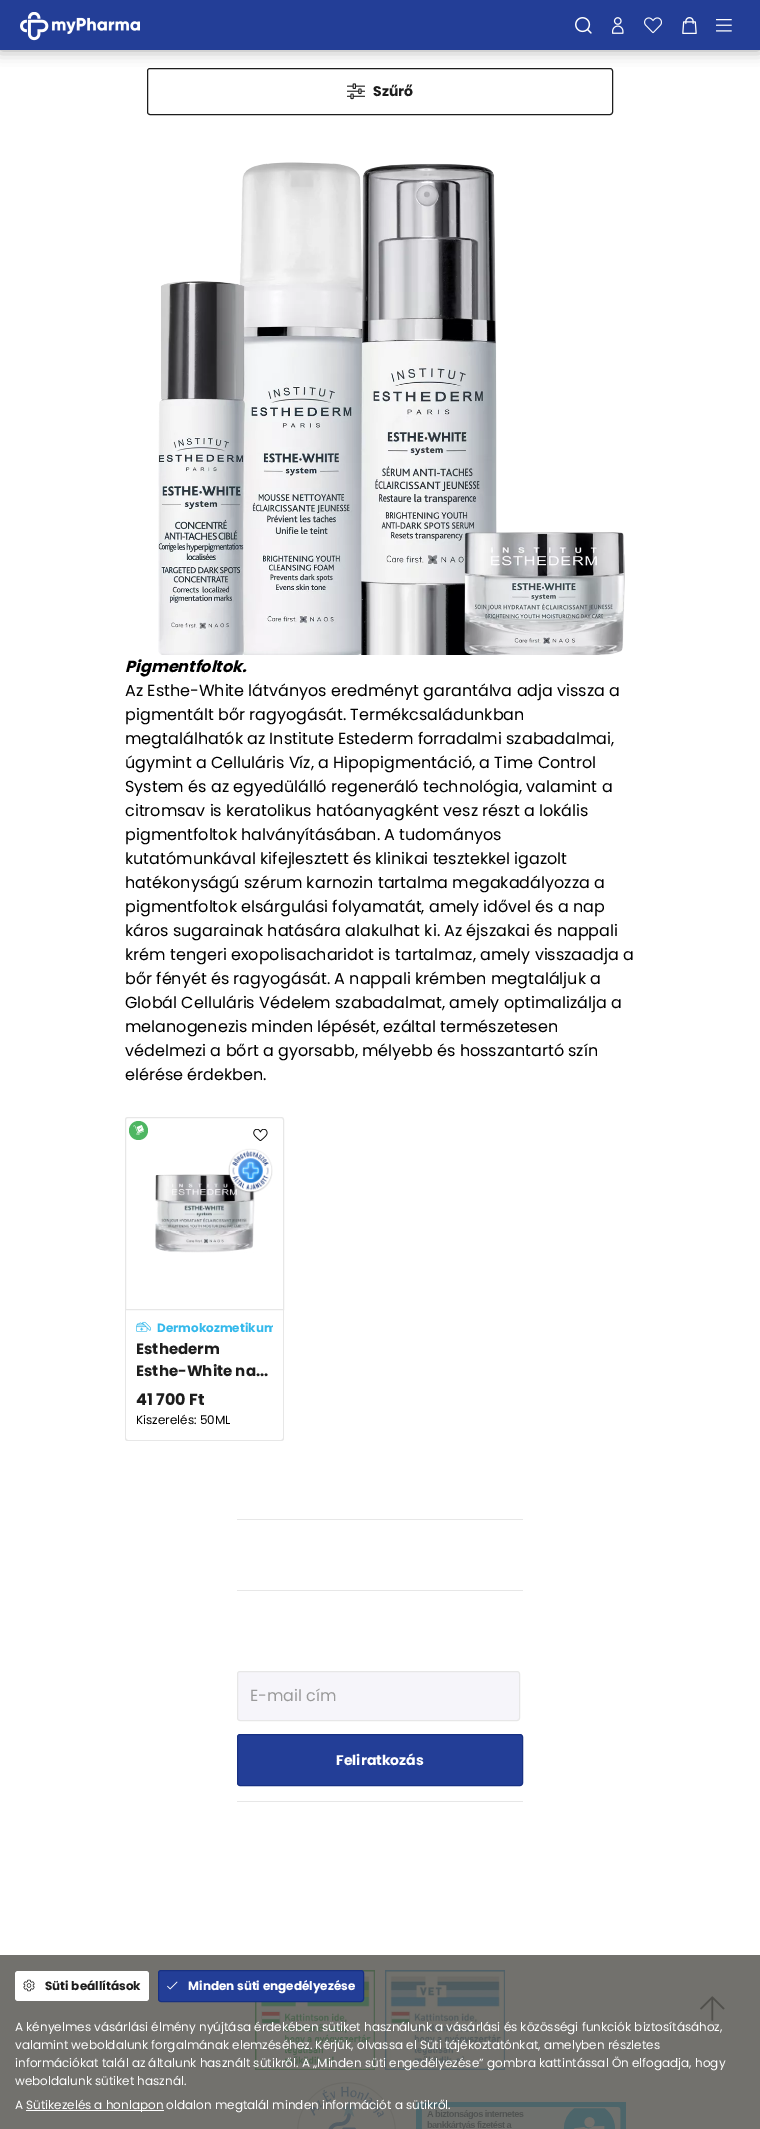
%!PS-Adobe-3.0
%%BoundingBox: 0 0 760 2129
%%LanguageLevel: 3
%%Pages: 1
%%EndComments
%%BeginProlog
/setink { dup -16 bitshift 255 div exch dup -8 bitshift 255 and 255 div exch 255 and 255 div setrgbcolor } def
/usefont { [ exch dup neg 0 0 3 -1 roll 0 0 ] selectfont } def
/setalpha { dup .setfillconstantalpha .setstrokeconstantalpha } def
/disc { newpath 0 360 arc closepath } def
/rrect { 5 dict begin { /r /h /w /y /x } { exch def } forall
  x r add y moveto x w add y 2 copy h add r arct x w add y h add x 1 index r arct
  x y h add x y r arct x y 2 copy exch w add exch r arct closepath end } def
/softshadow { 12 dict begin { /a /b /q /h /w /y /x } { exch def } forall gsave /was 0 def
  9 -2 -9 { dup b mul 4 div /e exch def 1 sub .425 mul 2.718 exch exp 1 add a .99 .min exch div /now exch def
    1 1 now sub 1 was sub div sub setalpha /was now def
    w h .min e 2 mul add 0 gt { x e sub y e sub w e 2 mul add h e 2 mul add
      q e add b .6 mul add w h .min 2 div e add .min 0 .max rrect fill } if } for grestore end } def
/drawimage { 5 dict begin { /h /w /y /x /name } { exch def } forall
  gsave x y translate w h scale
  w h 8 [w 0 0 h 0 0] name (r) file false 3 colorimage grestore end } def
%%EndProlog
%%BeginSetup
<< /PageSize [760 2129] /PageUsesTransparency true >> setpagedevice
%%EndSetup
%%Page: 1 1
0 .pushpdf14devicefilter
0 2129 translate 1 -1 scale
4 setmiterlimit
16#FFFFFF setink
0 0 760 2129 rectfill
16#72716D setink
0 1955 760 174 rectfill
16#1D1D1D setink
147.5 68.5 465 46 2.5 rrect stroke
16#000000 setink
0 0 760 50 0 7.5 0.35 softshadow
16#233E97 setink
0 0 760 50 rectfill
(img1.raw) 20 12 120 29 drawimage
(img2.raw) 575 17 17 17 drawimage
(img3.raw) 612 17 12 17 drawimage
(img4.raw) 644 17 18 17 drawimage
(img5.raw) 682 17 15 17 drawimage
(img6.raw) 716 19 16 13 drawimage
(img7.raw) 347 83 18 17 drawimage
/Poppins-Bold 14 usefont
16#1D1D1D setink
373 96 moveto (Szűrő) show
(img8.raw) 158 162 467 493 drawimage
/Poppins-BoldItalic 16 usefont
16#000000 setink
125 672 moveto (Pigmentfoltok.) show
/Poppins-Regular 16 usefont
[
    [(Az Esthe-White látványos eredményt garantálva adja vissza a) 125 696]
    [(pigmentált bőr ragyogását. Termékcsaládunkban) 125 720]
    [(megtalálhatók az Institute Estederm forradalmi szabadalmai,) 125 744]
    [(úgymint a Celluláris Víz, a Hipopigmentáció, a Time Control) 125 768]
    [(System és az egyedülálló regeneráló technológia, valamint a) 125 792]
    [(citromsav is keratolikus hatóanyagként vesz részt a lokális) 125 816]
    [(pigmentfoltok halványításában. A tudományos) 125 840]
    [(kutatómunkával kifejlesztett és klinikai tesztekkel igazolt) 125 864]
    [(hatékonyságú szérum karnozin tartalma megakadályozza a) 125 888]
    [(pigmentfoltok elsárgulási folyamatát, amely idővel és a nap) 125 912]
    [(káros sugarainak hatására alakulhat ki. Az éjszakai és nappali) 125 936]
    [(krém tengeri exopolisacharidot is tartalmaz, amely visszaadja a) 125 960]
    [(bőr fényét és ragyogását. A nappali krémben megtaláljuk a) 125 984]
    [(Globál Celluláris Védelem szabadalmat, amely optimalizálja a) 125 1008]
    [(melanogenezis minden lépését, ezáltal természetesen) 125 1032]
    [(védelmezi a bőrt a gyorsabb, mélyebb és hosszantartó szín) 125 1056]
    [(elérése érdekben.) 125 1080]
] { aload pop moveto show } forall
16#E7E7E7 setink
128 1117.5 moveto 281 1117.5 lineto 282.5 1117.5 283.5 1118.5 283.5 1120 curveto 283.5 1309.5 lineto 125.5 1309.5 lineto 125.5 1120 lineto 125.5 1118.5 126.5 1117.5 128 1117.5 curveto closepath stroke
(img9.raw) 155 1174 100 79 drawimage
16#4EB662 setink
138.5 1130.5 9.5 disc fill
(img10.raw) 133 1125 11 10 drawimage
(img11.raw) 253 1129 15 12 drawimage
(img12.raw) 228 1148 45 45 drawimage
16#E7E7E7 setink
125 1310 moveto 284 1310 lineto 284 1438 lineto 284 1440 283 1441 281 1441 curveto 128 1441 lineto 126 1441 125 1440 125 1438 curveto closepath 126 1310 moveto 283 1310 lineto 283 1438 lineto 283 1439 282 1440 281 1440 curveto 128 1440 lineto 127 1440 126 1439 126 1438 curveto closepath eofill
(img13.raw) 136 1321 15 11 drawimage
gsave
136 1320 137 15 rectclip
/Poppins-Bold 12 usefont
16#35B9EB setink
157 1332 moveto (Dermokozmetikum) show
grestore
/Poppins-Bold 15 usefont
16#1D1D1D setink
136 1354 moveto (Esthederm) show
136 1376 moveto (Esthe-White na...) show
/Poppins-Bold 16 usefont
136 1405 moveto (41 700 Ft) show
/Poppins-Regular 12 usefont
16#000000 setink
136 1424 moveto (Kiszerelés: 50ML) show
[
    [237 1519 286 1 16#E7E7E7]
    [237 1801 286 1 16#E7E7E7]
    [237 1590 286 1 16#E7E7E7]
] { aload pop setink rectfill } forall
16#F6F5FA setink
237.5 1671.5 282 49 2.5 rrect gsave fill grestore
16#E7E7E7 setink
stroke
/Poppins-Regular 16 usefont
16#9A9A9A setink
250 1701 moveto (E-mail cím) show
16#233E97 setink
237.5 1734.5 285 51 2.5 rrect gsave fill grestore
16#173082 setink
stroke
/Poppins-Bold 14 usefont
16#FFFFFF setink
336 1765 moveto (Feliratkozás) show
(img14.raw) 255 1970 120 100 drawimage
(img15.raw) 385 1970 120 100 drawimage
(img16.raw) 297 2082 99 47 drawimage
(img17.raw) 416 2102 210 27 drawimage
15 1971 134 30 3 rrect fill
(img18.raw) 23 1979 12 13 drawimage
/Poppins-Bold 12 usefont
16#1D1D1D setink
45 1990 moveto (Süti beállítások) show
16#233E97 setink
158.5 1970.5 205 31 2.5 rrect gsave fill grestore
16#173082 setink
stroke
(img19.raw) 167 1981 11 9 drawimage
16#FFFFFF setink
188 1990 moveto (Minden süti engedélyezése) show
/Poppins-Regular 12 usefont
[
    [(A kényelmes vásárlási élmény nyújtása érdekében sütiket használunk a vásárlási és közösségi funkciók biztosításához,) 15 2031]
    [(valamint weboldalunk forgalmának elemzéséhez. Kérjük, olvassa el Süti tájékoztatónkat, amelyben részletes) 15 2049]
    [(információkat talál az általunk használt sütikről. A „Minden süti engedélyezése” gombra kattintással Ön elfogadja, hogy) 15 2067]
    [(weboldalunk sütiket használ.) 15 2085]
    [(A) 15 2109]
] { aload pop moveto show } forall
26 2110 138 1 rectfill
26 2109 moveto (Sütikezelés a honlapon oldalon megtalál minden információt a sütikről.) show
(img20.raw) 700 1996 25 25 drawimage
.poppdf14devicefilter showpage
%%EOF
